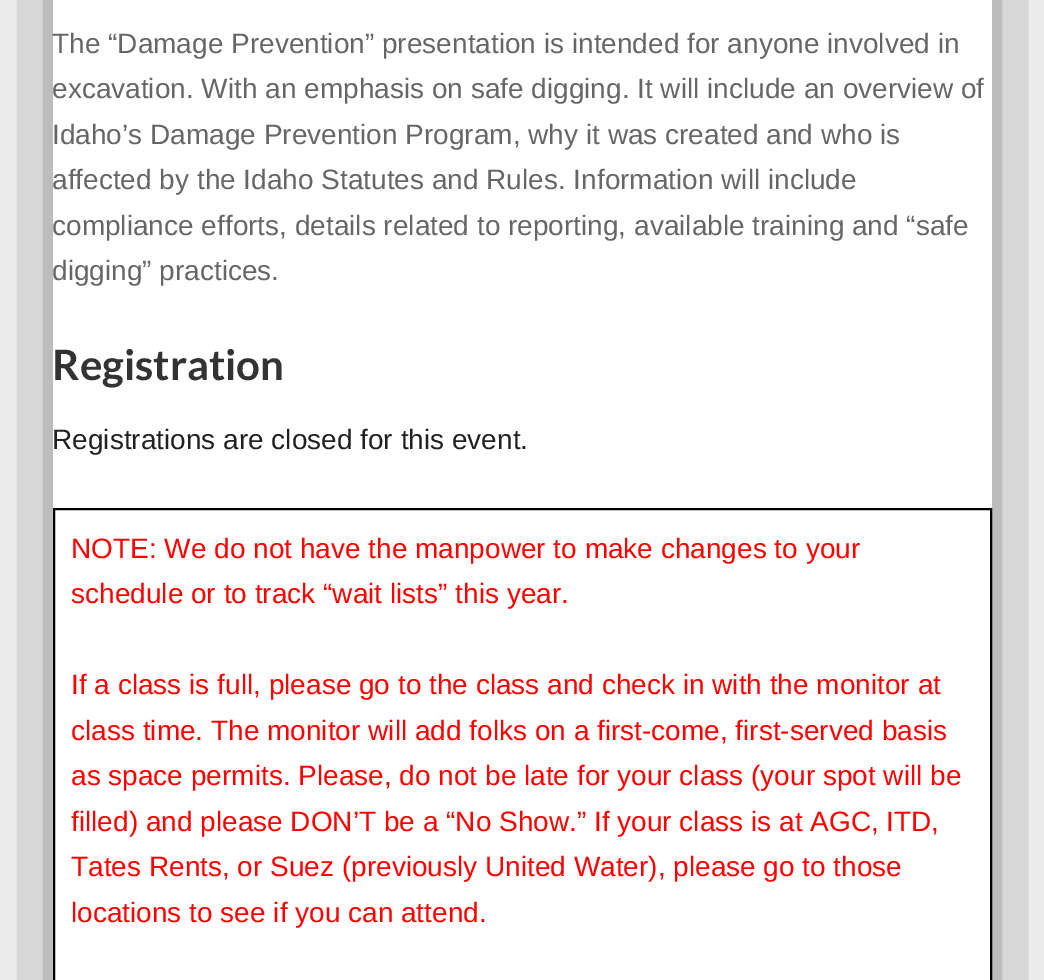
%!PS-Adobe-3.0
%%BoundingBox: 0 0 1044 980
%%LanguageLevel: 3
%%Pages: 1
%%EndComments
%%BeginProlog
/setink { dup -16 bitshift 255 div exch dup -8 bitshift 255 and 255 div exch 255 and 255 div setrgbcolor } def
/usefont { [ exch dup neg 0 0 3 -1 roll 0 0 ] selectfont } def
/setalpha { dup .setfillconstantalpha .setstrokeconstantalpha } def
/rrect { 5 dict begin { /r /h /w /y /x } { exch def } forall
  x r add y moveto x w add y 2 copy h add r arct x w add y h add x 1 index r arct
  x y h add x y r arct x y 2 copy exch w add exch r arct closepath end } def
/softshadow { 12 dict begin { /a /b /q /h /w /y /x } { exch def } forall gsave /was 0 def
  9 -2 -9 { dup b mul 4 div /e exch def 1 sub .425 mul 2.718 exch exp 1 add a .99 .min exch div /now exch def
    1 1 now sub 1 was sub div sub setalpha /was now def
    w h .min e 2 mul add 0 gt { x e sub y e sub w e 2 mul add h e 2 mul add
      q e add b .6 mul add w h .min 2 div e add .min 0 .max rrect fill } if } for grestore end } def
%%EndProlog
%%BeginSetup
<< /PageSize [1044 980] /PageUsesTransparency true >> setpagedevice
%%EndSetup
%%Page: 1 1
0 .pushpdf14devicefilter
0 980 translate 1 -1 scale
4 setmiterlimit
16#FFFFFF setink
0 0 1044 980 rectfill
gsave
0 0 moveto 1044 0 lineto 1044 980 lineto 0 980 lineto closepath 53 -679 moveto 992 -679 lineto 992 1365 lineto 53 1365 lineto closepath eoclip newpath
16#777777 setink
56 -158 933 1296 0 52.5 1 softshadow
grestore
/LiberationSans-Regular 28 usefont
16#666666 setink
[
    [(The “Damage Prevention” presentation is intended for anyone involved in) 52 53]
    [(excavation. With an emphasis on safe digging. It will include an overview of) 52 98]
    [(Idaho’s Damage Prevention Program, why it was created and who is) 52 144]
    [(affected by the Idaho Statutes and Rules. Information will include) 52 189]
    [(compliance efforts, details related to reporting, available training and “safe) 52 235]
    [(digging” practices.) 52 280]
] { aload pop moveto show } forall
/Lato-Bold 42 usefont
16#333333 setink
52 380 moveto (Registration) show
/LiberationSans-Regular 28 usefont
16#212121 setink
52 449 moveto (Registrations are closed for this event.) show
16#000000 setink
2 setlinewidth
54 509 937 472 rectstroke
16#FF0000 setink
[
    [(NOTE: We do not have the manpower to make changes to your) 71 558]
    [(schedule or to track “wait lists” this year.) 71 603]
    [(If a class is full, please go to the class and check in with the monitor at) 71 694]
    [(class time. The monitor will add folks on a first-come, first-served basis) 71 740]
    [(as space permits. Please, do not be late for your class \(your spot will be) 71 785]
    [(filled\) and please DON’T be a “No Show.” If your class is at AGC, ITD,) 71 831]
    [(Tates Rents, or Suez \(previously United Water\), please go to those) 71 876]
    [(locations to see if you can attend.) 71 922]
] { aload pop moveto show } forall
.poppdf14devicefilter showpage
%%EOF
